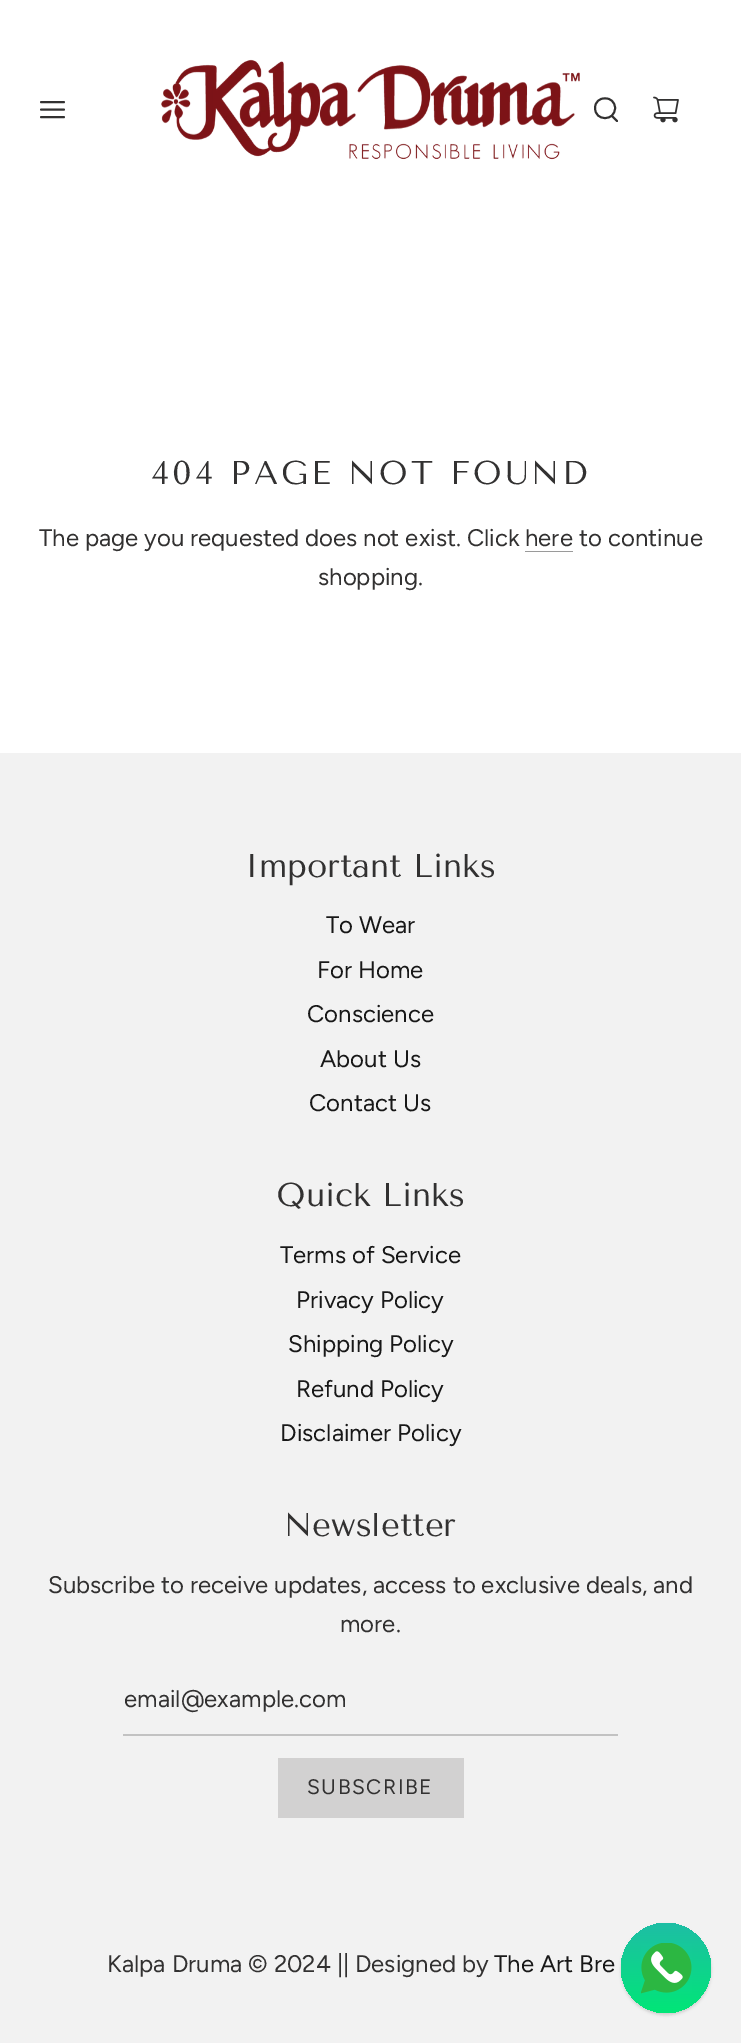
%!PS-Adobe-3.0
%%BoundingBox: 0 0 741 2043
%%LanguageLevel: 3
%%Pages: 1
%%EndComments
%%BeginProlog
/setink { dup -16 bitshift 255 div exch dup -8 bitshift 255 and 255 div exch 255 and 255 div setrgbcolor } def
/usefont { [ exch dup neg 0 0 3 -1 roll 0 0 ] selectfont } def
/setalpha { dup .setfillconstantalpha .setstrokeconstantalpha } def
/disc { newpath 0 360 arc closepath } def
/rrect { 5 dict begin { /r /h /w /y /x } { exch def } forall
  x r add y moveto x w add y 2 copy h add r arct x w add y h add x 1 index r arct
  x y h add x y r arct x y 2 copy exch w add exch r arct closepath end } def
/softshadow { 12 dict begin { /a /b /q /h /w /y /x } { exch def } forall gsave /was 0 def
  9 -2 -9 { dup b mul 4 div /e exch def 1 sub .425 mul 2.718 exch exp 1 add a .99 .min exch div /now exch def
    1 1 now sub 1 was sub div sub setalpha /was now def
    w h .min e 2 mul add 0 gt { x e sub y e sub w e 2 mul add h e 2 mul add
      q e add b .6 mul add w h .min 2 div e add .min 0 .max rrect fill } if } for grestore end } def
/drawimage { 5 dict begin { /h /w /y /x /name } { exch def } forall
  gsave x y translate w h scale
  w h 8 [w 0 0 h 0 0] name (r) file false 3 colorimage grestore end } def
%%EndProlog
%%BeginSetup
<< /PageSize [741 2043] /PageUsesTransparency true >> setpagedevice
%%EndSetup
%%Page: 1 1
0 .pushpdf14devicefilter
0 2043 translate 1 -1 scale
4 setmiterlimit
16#FFFFFF setink
0 0 741 2043 rectfill
16#323131 setink
1.9 setlinewidth
1 setlinecap
1 setlinejoin
41 102 moveto 64 102 lineto 41 109.5 moveto 64 109.5 lineto 41 117 moveto 64 117 lineto stroke
(img1.raw) 161 59 419 101 drawimage
612 116 moveto 617 121 lineto 595 108 moveto 595 121.5 615 121.5 615 108 curveto 615 95 595 95 595 108 curveto closepath stroke
(img2.raw) 653 96 26 27 drawimage
/TenorSans-Regular 33 usefont
151 484 moveto 3 0 (404 PAGE NOT FOUND) ashow
/Figtree-Regular 24 usefont
39 546 moveto (The page you requested does not exist. Click) show
525 546 moveto (here) show
16#9A9A9A setink
525 551 48 1 rectfill
16#323131 setink
579 546 moveto (to continue) show
318 585 moveto (shopping.) show
16#F2F2F2 setink
0 753 741 1290 rectfill
/TenorSans-Regular 33 usefont
16#323131 setink
245 877 moveto (Important Links) show
/Figtree-Regular 24 usefont
16#181818 setink
[
    [(To Wear) 326 933]
    [(For Home) 317 978]
    [(Conscience) 307 1022]
    [(About Us) 320 1067]
    [(Contact Us) 309 1111]
] { aload pop moveto show } forall
/TenorSans-Regular 33 usefont
16#323131 setink
276 1206 moveto (Quick Links) show
/Figtree-Regular 24 usefont
16#181818 setink
[
    [(Terms of Service) 280 1263]
    [(Privacy Policy) 296 1308]
    [(Shipping Policy) 288 1352]
    [(Refund Policy) 296 1397]
    [(Disclaimer Policy) 280 1441]
] { aload pop moveto show } forall
/TenorSans-Regular 33 usefont
16#323131 setink
284 1536 moveto (Newsletter) show
/Figtree-Regular 24 usefont
48 1593 moveto (Subscribe to receive updates, access to exclusive deals, and) show
340 1632 moveto (more.) show
16#C2C2C2 setink
123 1734 495 2 rectfill
16#323131 setink
124 1707 moveto (email@example.com) show
16#D2D1D1 setink
278 1758 186 60 rectfill
/Figtree-Regular 21 usefont
16#323131 setink
307 1794 moveto 1.5 0 (SUBSCRIBE) ashow
/Figtree-Regular 24 usefont
107 1972 moveto (Kalpa Druma © 2024 || Designed by) show
16#181818 setink
494 1972 moveto (The Art Bre) show
16#000000 setink
621 1925 90 90 45 1.5 0.15 softshadow
gsave 666 1968 45 disc clip newpath
<< /ShadingType 2 /ColorSpace /DeviceRGB /Coords [666 1923 666 2013] /Extend [true true] /Function << /FunctionType 2 /Domain [0 1] /C0 [0.118 0.745 0.647] /C1 [0.004 0.902 0.467] /N 1 >> >> shfill grestore
(img3.raw) 641 1943 51 51 drawimage
.poppdf14devicefilter showpage
%%EOF
